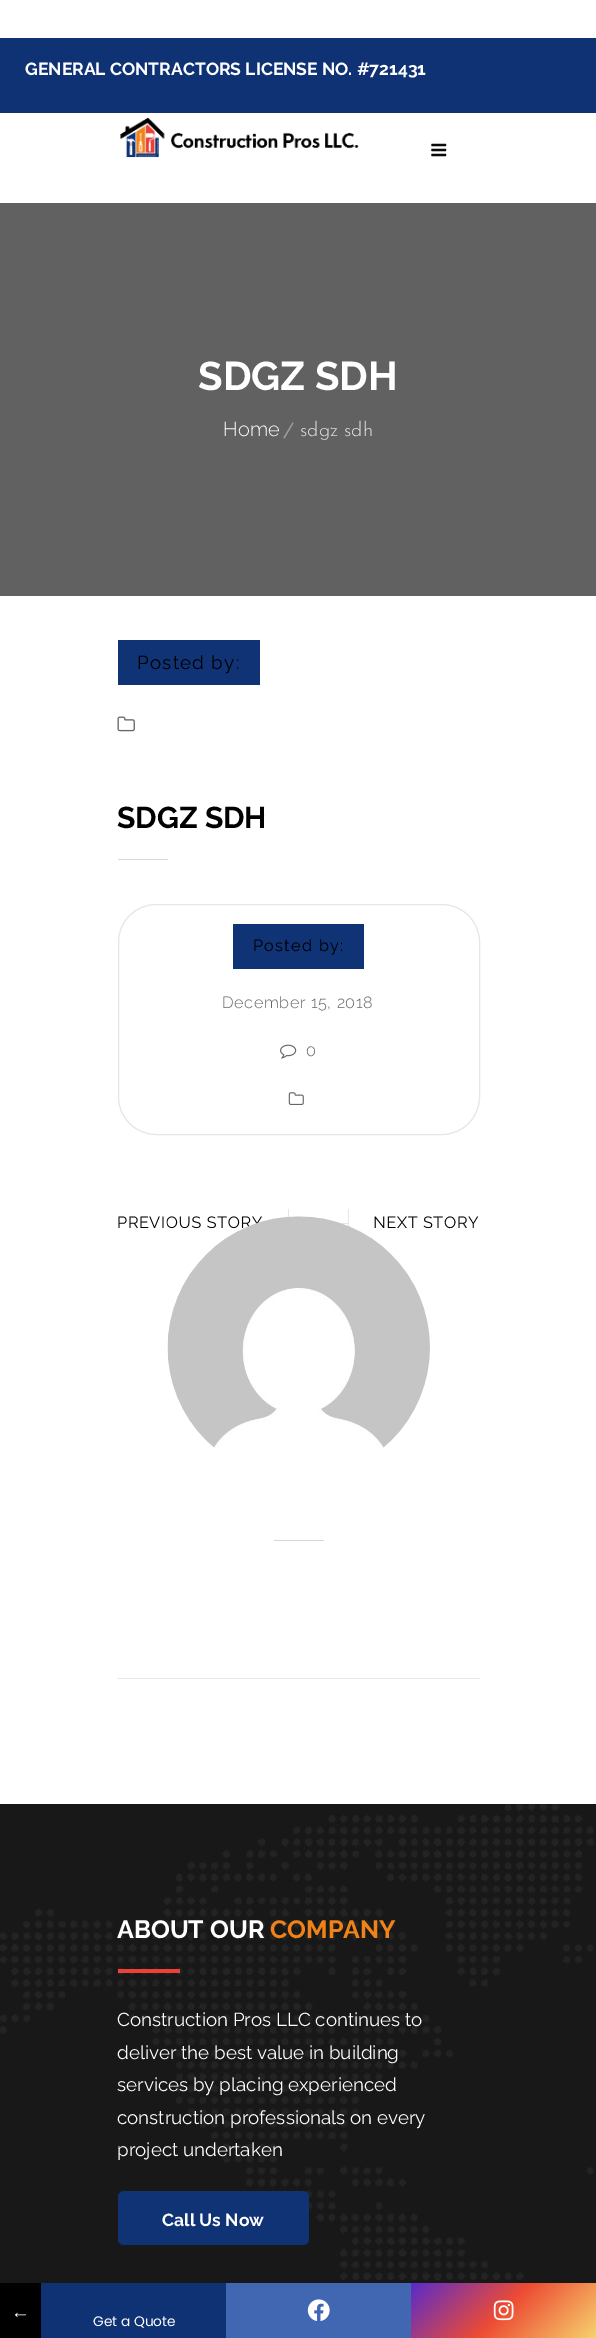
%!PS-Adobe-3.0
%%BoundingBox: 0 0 596 2338
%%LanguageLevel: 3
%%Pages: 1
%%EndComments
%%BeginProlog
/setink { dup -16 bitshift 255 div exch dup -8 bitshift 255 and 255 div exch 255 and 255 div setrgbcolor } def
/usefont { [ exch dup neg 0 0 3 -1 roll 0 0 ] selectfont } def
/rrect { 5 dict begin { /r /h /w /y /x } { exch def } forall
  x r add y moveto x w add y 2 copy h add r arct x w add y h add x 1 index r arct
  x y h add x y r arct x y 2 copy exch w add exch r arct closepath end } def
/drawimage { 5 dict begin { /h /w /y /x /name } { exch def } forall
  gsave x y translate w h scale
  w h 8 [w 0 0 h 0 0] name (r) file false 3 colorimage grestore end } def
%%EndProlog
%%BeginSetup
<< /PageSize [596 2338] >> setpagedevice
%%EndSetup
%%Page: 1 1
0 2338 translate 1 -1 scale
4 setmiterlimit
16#FFFFFF setink
0 0 596 2338 rectfill
16#0F3274 setink
0 38 596 75 rectfill
/Raleway-Bold 17.5 usefont
16#FFFFFF setink
25 75 moveto (GENERAL CONTRACTORS LICENSE NO. #721431) show
(img1.raw) 120 117 239 41 drawimage
(img2.raw) 431 143 16 14 drawimage
16#616161 setink
0 203 596 393 rectfill
/Raleway-Bold 40 usefont
16#FFFFFF setink
198 390 moveto (SDGZ SDH) show
/Raleway-Light 20 usefont
223 436 moveto (Home) show
16#9C9C9C setink
292.5 422.5 moveto 293.5 423 lineto 284.5 438.5 lineto 283.5 437.5 lineto closepath fill
/JosefinSans-Light 20 usefont
16#DFDFDF setink
300 436 moveto (sdgz sdh) show
16#103375 setink
118 640 142 45 rectfill
/Raleway-Regular 18.75 usefont
16#000000 setink
137 669 moveto 1.25 0 (Posted by:) ashow
(img3.raw) 117 716 18 16 drawimage
/Raleway-Bold 30 usefont
117 828 moveto (SDGZ SDH) show
16#D9D9D9 setink
118 859 50 1 rectfill
16#E6E6E6 setink
118.5 904.5 361 230 37.5 rrect stroke
16#103375 setink
233 924 131 45 rectfill
/Raleway-Regular 16.25 usefont
16#000000 setink
253 951 moveto 1.25 0 (Posted by:) ashow
/Raleway-Light 16.25 usefont
16#666666 setink
222 1008 moveto 0.6 0 (December 15, 2018) ashow
(img4.raw) 280 1044 17 15 drawimage
306 1056 moveto 0.6 0 (0) ashow
(img5.raw) 288 1092 16 13 drawimage
16#E6E6E6 setink
288 1209 1 8 rectfill
/Raleway-Regular 16.25 usefont
16#000000 setink
117 1228 moveto 0.6 0 (PREVIOUS STORY) ashow
16#E6E6E6 setink
340 1223 8 1 rectfill
348 1209 1 18 rectfill
16#000000 setink
373 1228 moveto 0.6 0 (NEXT STORY) ashow
(img6.raw) 167 1216 263 232 drawimage
[
    [274 1540 50 1 16#D7D7D7]
    [118 1678 362 1 16#E6E6E6]
    [0 1804 596 479 16#181818]
] { aload pop setink rectfill } forall
(img7.raw) 0 1804 594 476 drawimage
/Raleway-Bold 25 usefont
16#FFFFFF setink
117 1938 moveto (ABOUT OUR) show
16#F08218 setink
270 1938 moveto (COMPANY) show
16#ED4036 setink
118 1969 62 4 rectfill
/Raleway-Regular 18.75 usefont
16#FFFFFF setink
[
    [(Construction Pros LLC continues to) 117 2026]
    [(deliver the best value in building) 117 2059]
    [(services by placing experienced) 117 2091]
    [(construction professionals on every) 117 2124]
    [(project undertaken) 117 2156]
] { aload pop moveto show } forall
16#103375 setink
118 2191 191 54 6 rrect fill
/Raleway-Bold 17.5 usefont
16#FFFFFF setink
162 2226 moveto (Call Us Now) show
16#000000 setink
0 2283 41 55 rectfill
/LiberationSerif-Regular 18.75 usefont
16#FFFFFF setink
11 2318 moveto (←) show
16#4267B2 setink
226 2283 185 55 rectfill
(img8.raw) 307 2299 23 22 drawimage
gsave 411 2283 moveto 596 2283 lineto 596 2338 lineto 411 2338 lineto closepath clip newpath
<< /ShadingType 2 /ColorSpace /DeviceRGB /Coords [443 2250 564 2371] /Extend [true true] /Function << /FunctionType 3 /Domain [0 1] /Functions [<< /FunctionType 2 /Domain [0 1] /C0 [0.345 0.169 0.804] /C1 [0.929 0.298 0.2] /N 1 >> << /FunctionType 2 /Domain [0 1] /C0 [0.929 0.298 0.2] /C1 [0.969 0.827 0.435] /N 1 >>] /Bounds [0.5] /Encode [0 1 0 1] >> >> shfill grestore
(img9.raw) 493 2300 21 21 drawimage
16#0F3274 setink
41 2283 185 55 rectfill
/Poppins-Regular 13.75 usefont
16#FFFFFF setink
93 2326 moveto (Get a Quote) show
showpage
%%EOF
